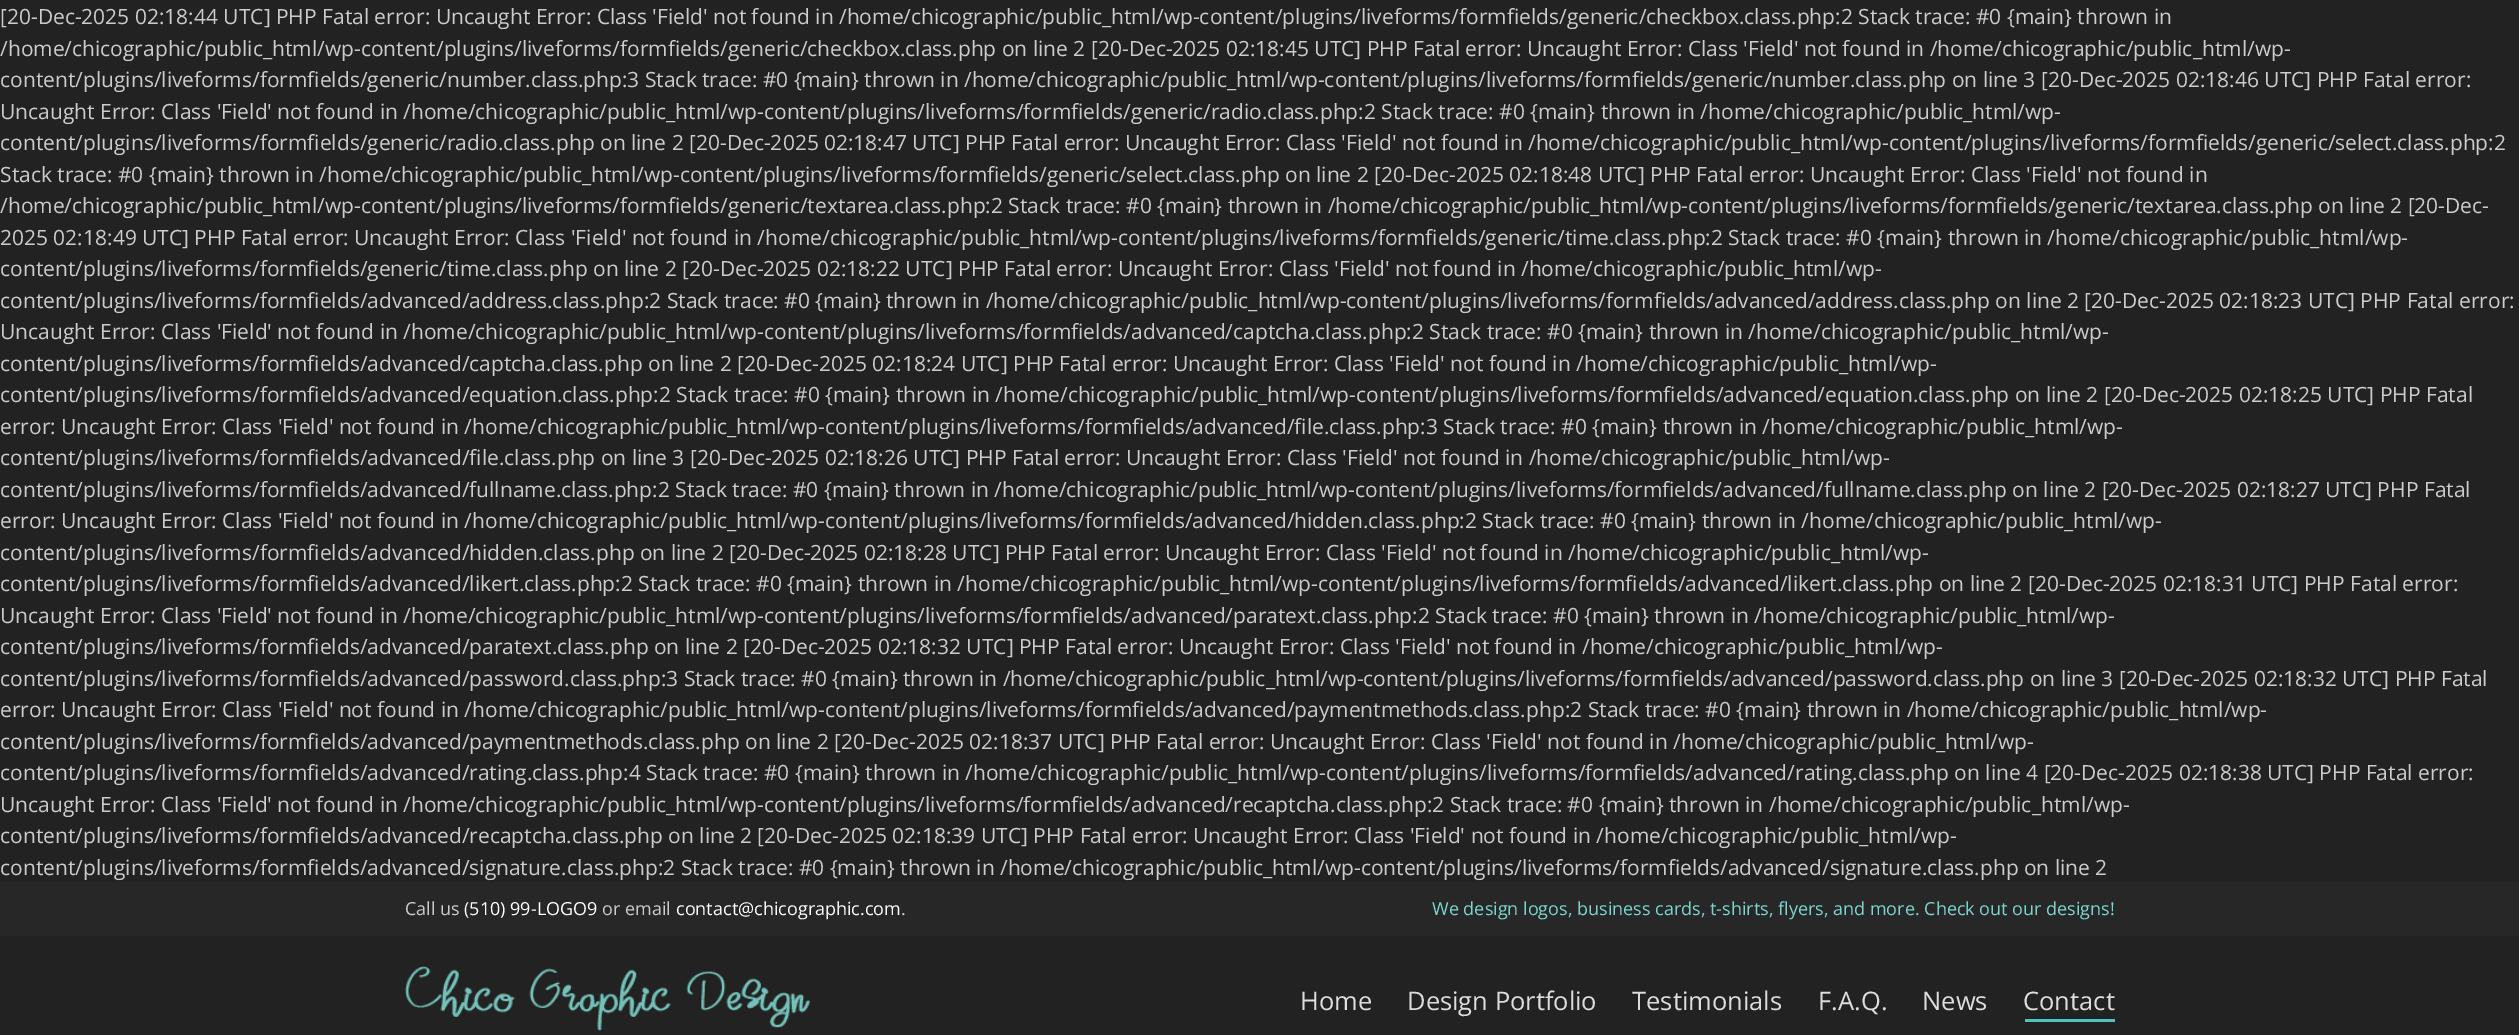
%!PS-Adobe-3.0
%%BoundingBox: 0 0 2519 1035
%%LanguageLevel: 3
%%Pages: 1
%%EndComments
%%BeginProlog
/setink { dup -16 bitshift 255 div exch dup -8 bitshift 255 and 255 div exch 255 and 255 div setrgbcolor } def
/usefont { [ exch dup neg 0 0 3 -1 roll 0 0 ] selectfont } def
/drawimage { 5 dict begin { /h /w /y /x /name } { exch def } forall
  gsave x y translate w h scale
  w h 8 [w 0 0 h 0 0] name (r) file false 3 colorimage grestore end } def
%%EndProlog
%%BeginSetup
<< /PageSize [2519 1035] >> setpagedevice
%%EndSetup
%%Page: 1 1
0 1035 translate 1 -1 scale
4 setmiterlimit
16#222222 setink
0 0 2519 1035 rectfill
/OpenSans-Regular 21 usefont
16#CCCCCC setink
[
    [([20-Dec-2025 02:18:44 UTC] PHP Fatal error: Uncaught Error: Class 'Field' not found in /home/chicographic/public_html/wp-content/plugins/liveforms/formfields/generic/checkbox.class.php:2 Stack trace: #0 {main} thrown in) 0 24]
    [(/home/chicographic/public_html/wp-content/plugins/liveforms/formfields/generic/checkbox.class.php on line 2 [20-Dec-2025 02:18:45 UTC] PHP Fatal error: Uncaught Error: Class 'Field' not found in /home/chicographic/public_html/wp-) 0 56]
    [(content/plugins/liveforms/formfields/generic/number.class.php:3 Stack trace: #0 {main} thrown in /home/chicographic/public_html/wp-content/plugins/liveforms/formfields/generic/number.class.php on line 3 [20-Dec-2025 02:18:46 UTC] PHP Fatal error:) 0 87]
    [(Uncaught Error: Class 'Field' not found in /home/chicographic/public_html/wp-content/plugins/liveforms/formfields/generic/radio.class.php:2 Stack trace: #0 {main} thrown in /home/chicographic/public_html/wp-) 0 119]
    [(content/plugins/liveforms/formfields/generic/radio.class.php on line 2 [20-Dec-2025 02:18:47 UTC] PHP Fatal error: Uncaught Error: Class 'Field' not found in /home/chicographic/public_html/wp-content/plugins/liveforms/formfields/generic/select.class.php:2) 0 150]
    [(Stack trace: #0 {main} thrown in /home/chicographic/public_html/wp-content/plugins/liveforms/formfields/generic/select.class.php on line 2 [20-Dec-2025 02:18:48 UTC] PHP Fatal error: Uncaught Error: Class 'Field' not found in) 0 182]
    [(/home/chicographic/public_html/wp-content/plugins/liveforms/formfields/generic/textarea.class.php:2 Stack trace: #0 {main} thrown in /home/chicographic/public_html/wp-content/plugins/liveforms/formfields/generic/textarea.class.php on line 2 [20-Dec-) 0 213]
    [(2025 02:18:49 UTC] PHP Fatal error: Uncaught Error: Class 'Field' not found in /home/chicographic/public_html/wp-content/plugins/liveforms/formfields/generic/time.class.php:2 Stack trace: #0 {main} thrown in /home/chicographic/public_html/wp-) 0 245]
    [(content/plugins/liveforms/formfields/generic/time.class.php on line 2 [20-Dec-2025 02:18:22 UTC] PHP Fatal error: Uncaught Error: Class 'Field' not found in /home/chicographic/public_html/wp-) 0 276]
    [(content/plugins/liveforms/formfields/advanced/address.class.php:2 Stack trace: #0 {main} thrown in /home/chicographic/public_html/wp-content/plugins/liveforms/formfields/advanced/address.class.php on line 2 [20-Dec-2025 02:18:23 UTC] PHP Fatal error:) 0 308]
    [(Uncaught Error: Class 'Field' not found in /home/chicographic/public_html/wp-content/plugins/liveforms/formfields/advanced/captcha.class.php:2 Stack trace: #0 {main} thrown in /home/chicographic/public_html/wp-) 0 339]
    [(content/plugins/liveforms/formfields/advanced/captcha.class.php on line 2 [20-Dec-2025 02:18:24 UTC] PHP Fatal error: Uncaught Error: Class 'Field' not found in /home/chicographic/public_html/wp-) 0 371]
    [(content/plugins/liveforms/formfields/advanced/equation.class.php:2 Stack trace: #0 {main} thrown in /home/chicographic/public_html/wp-content/plugins/liveforms/formfields/advanced/equation.class.php on line 2 [20-Dec-2025 02:18:25 UTC] PHP Fatal) 0 402]
    [(error: Uncaught Error: Class 'Field' not found in /home/chicographic/public_html/wp-content/plugins/liveforms/formfields/advanced/file.class.php:3 Stack trace: #0 {main} thrown in /home/chicographic/public_html/wp-) 0 434]
    [(content/plugins/liveforms/formfields/advanced/file.class.php on line 3 [20-Dec-2025 02:18:26 UTC] PHP Fatal error: Uncaught Error: Class 'Field' not found in /home/chicographic/public_html/wp-) 0 465]
    [(content/plugins/liveforms/formfields/advanced/fullname.class.php:2 Stack trace: #0 {main} thrown in /home/chicographic/public_html/wp-content/plugins/liveforms/formfields/advanced/fullname.class.php on line 2 [20-Dec-2025 02:18:27 UTC] PHP Fatal) 0 497]
    [(error: Uncaught Error: Class 'Field' not found in /home/chicographic/public_html/wp-content/plugins/liveforms/formfields/advanced/hidden.class.php:2 Stack trace: #0 {main} thrown in /home/chicographic/public_html/wp-) 0 528]
    [(content/plugins/liveforms/formfields/advanced/hidden.class.php on line 2 [20-Dec-2025 02:18:28 UTC] PHP Fatal error: Uncaught Error: Class 'Field' not found in /home/chicographic/public_html/wp-) 0 560]
    [(content/plugins/liveforms/formfields/advanced/likert.class.php:2 Stack trace: #0 {main} thrown in /home/chicographic/public_html/wp-content/plugins/liveforms/formfields/advanced/likert.class.php on line 2 [20-Dec-2025 02:18:31 UTC] PHP Fatal error:) 0 591]
    [(Uncaught Error: Class 'Field' not found in /home/chicographic/public_html/wp-content/plugins/liveforms/formfields/advanced/paratext.class.php:2 Stack trace: #0 {main} thrown in /home/chicographic/public_html/wp-) 0 623]
    [(content/plugins/liveforms/formfields/advanced/paratext.class.php on line 2 [20-Dec-2025 02:18:32 UTC] PHP Fatal error: Uncaught Error: Class 'Field' not found in /home/chicographic/public_html/wp-) 0 654]
    [(content/plugins/liveforms/formfields/advanced/password.class.php:3 Stack trace: #0 {main} thrown in /home/chicographic/public_html/wp-content/plugins/liveforms/formfields/advanced/password.class.php on line 3 [20-Dec-2025 02:18:32 UTC] PHP Fatal) 0 686]
    [(error: Uncaught Error: Class 'Field' not found in /home/chicographic/public_html/wp-content/plugins/liveforms/formfields/advanced/paymentmethods.class.php:2 Stack trace: #0 {main} thrown in /home/chicographic/public_html/wp-) 0 717]
    [(content/plugins/liveforms/formfields/advanced/paymentmethods.class.php on line 2 [20-Dec-2025 02:18:37 UTC] PHP Fatal error: Uncaught Error: Class 'Field' not found in /home/chicographic/public_html/wp-) 0 749]
    [(content/plugins/liveforms/formfields/advanced/rating.class.php:4 Stack trace: #0 {main} thrown in /home/chicographic/public_html/wp-content/plugins/liveforms/formfields/advanced/rating.class.php on line 4 [20-Dec-2025 02:18:38 UTC] PHP Fatal error:) 0 780]
    [(Uncaught Error: Class 'Field' not found in /home/chicographic/public_html/wp-content/plugins/liveforms/formfields/advanced/recaptcha.class.php:2 Stack trace: #0 {main} thrown in /home/chicographic/public_html/wp-) 0 812]
    [(content/plugins/liveforms/formfields/advanced/recaptcha.class.php on line 2 [20-Dec-2025 02:18:39 UTC] PHP Fatal error: Uncaught Error: Class 'Field' not found in /home/chicographic/public_html/wp-) 0 843]
    [(content/plugins/liveforms/formfields/advanced/signature.class.php:2 Stack trace: #0 {main} thrown in /home/chicographic/public_html/wp-content/plugins/liveforms/formfields/advanced/signature.class.php on line 2) 0 875]
] { aload pop moveto show } forall
16#272727 setink
0 882 2519 54 rectfill
/OpenSans-Regular 18 usefont
16#CCCCCC setink
405 915 moveto (Call us) show
16#FFFFFF setink
464 915 moveto (\(510\) 99-LOGO9) show
16#CCCCCC setink
602 915 moveto (or email) show
16#FFFFFF setink
676 915 moveto (contact@chicographic.com) show
16#CCCCCC setink
901 915 moveto (.) show
16#7CD6D0 setink
1432 915 moveto (We design logos, business cards, t-shirts, flyers, and more. Check out our designs!) show
(img1.raw) 405 966 405 65 drawimage
/OpenSans-Regular 25.5 usefont
16#DDDDDD setink
[
    [(Home) 1300 1010]
    [(Design Portfolio) 1407 1010]
    [(Testimonials) 1632 1010]
    [(F.A.Q.) 1818 1010]
    [(News) 1922 1010]
    [(Contact) 2023 1010]
] { aload pop moveto show } forall
16#52C2BD setink
2025 1019 90 3 rectfill
showpage
%%EOF
